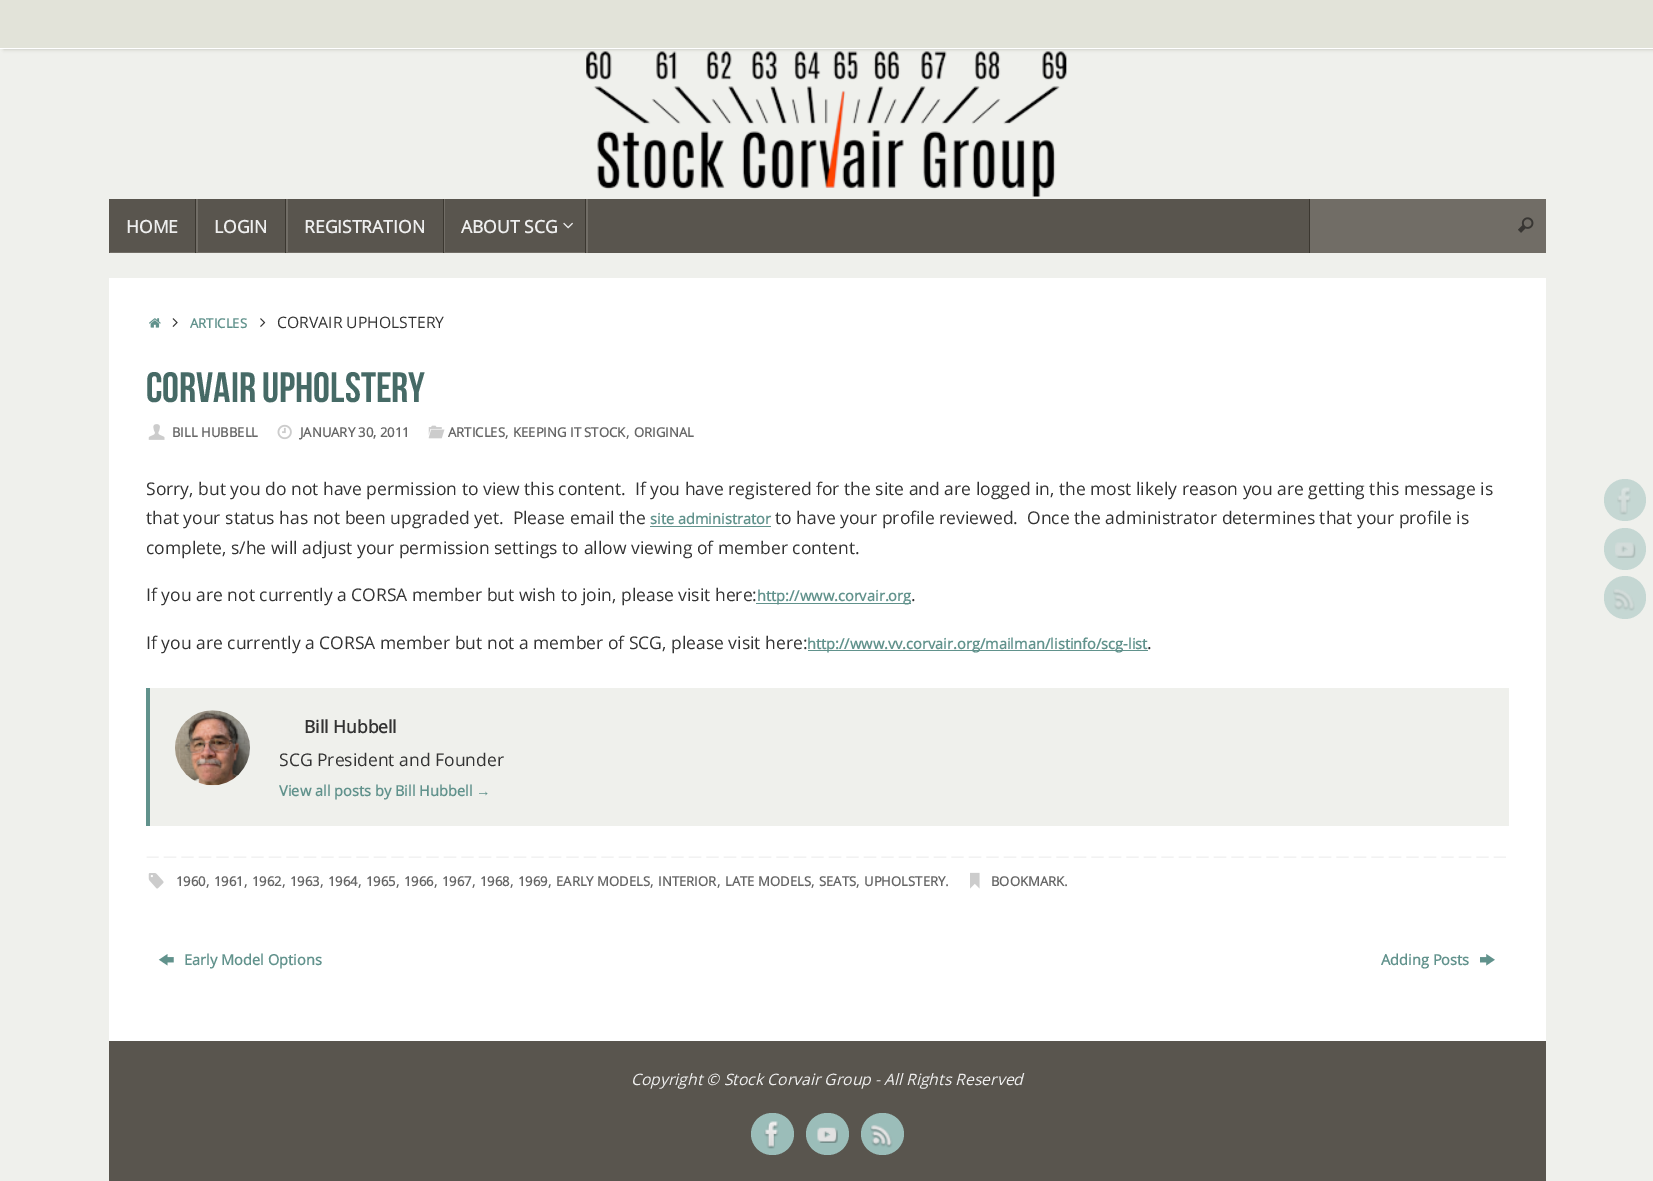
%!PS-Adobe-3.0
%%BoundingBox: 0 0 1653 1181
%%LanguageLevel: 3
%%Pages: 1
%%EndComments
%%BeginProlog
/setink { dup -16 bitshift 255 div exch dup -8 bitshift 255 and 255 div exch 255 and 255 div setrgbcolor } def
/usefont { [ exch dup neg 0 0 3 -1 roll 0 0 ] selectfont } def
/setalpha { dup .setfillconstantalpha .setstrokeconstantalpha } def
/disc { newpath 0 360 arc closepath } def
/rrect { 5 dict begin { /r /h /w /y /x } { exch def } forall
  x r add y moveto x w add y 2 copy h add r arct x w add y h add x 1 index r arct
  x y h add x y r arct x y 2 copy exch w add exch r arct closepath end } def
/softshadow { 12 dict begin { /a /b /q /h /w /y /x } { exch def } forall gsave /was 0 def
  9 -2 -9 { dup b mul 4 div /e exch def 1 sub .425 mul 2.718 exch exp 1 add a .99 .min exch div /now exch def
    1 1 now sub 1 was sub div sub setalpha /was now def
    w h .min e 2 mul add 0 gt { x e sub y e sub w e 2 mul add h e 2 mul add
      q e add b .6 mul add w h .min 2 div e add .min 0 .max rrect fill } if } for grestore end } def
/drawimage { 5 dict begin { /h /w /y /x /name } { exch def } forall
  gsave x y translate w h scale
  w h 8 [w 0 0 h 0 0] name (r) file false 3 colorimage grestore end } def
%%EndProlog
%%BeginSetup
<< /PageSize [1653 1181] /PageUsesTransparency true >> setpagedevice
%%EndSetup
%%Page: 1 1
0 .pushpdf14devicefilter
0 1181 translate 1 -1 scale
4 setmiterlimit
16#EFF0EC setink
0 0 1653 1181 rectfill
16#BABBB1 setink
4 -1 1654 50 0 2 1 softshadow
16#E2E3D9 setink
0 0 1653 48 rectfill
16#FFFFFF setink
0 48 1653 1 rectfill
(img1.raw) 586 51 481 146 drawimage
16#59554E setink
109 199 1200 54 rectfill
16#716D66 setink
110 252 moveto 110 253 lineto 198 253 lineto 198 199 lineto 196 199 lineto 196 252 lineto closepath fill
16#3B3730 setink
195 199 1 54 rectfill
/OpenSans-Bold 17.5 usefont
16#EEEEEE setink
126 233 moveto (HOME) show
16#716D66 setink
198 252 moveto 198 253 lineto 288 253 lineto 288 199 lineto 286 199 lineto 286 252 lineto closepath fill
16#3B3730 setink
285 199 1 54 rectfill
16#EEEEEE setink
214 233 moveto (LOGIN) show
16#716D66 setink
288 252 moveto 288 253 lineto 445 253 lineto 445 199 lineto 444 199 lineto 444 252 lineto closepath fill
16#3B3730 setink
443 199 1 54 rectfill
16#EEEEEE setink
304 233 moveto (REGISTRATION) show
16#716D66 setink
445 252 moveto 445 253 lineto 588 253 lineto 588 199 lineto 586 199 lineto 586 252 lineto closepath fill
16#3B3730 setink
585 199 1 54 rectfill
16#EEEEEE setink
461 233 moveto (ABOUT SCG) show
(img2.raw) 563 222 10 7 drawimage
16#716D66 setink
1310 199 236 54 rectfill
16#3B3730 setink
1309 199 1 54 rectfill
(img3.raw) 1518 217 16 16 drawimage
16#FFFFFF setink
109 278 1437 763 rectfill
(img4.raw) 149 318 12 10 drawimage
(img5.raw) 172 318 6 9 drawimage
/OpenSans-Bold 13.1 usefont
16#61928C setink
190 328 moveto (ARTICLES) show
(img6.raw) 260 318 6 9 drawimage
/OpenSans-Regular 15.75 usefont
16#333333 setink
277 328 moveto (CORVAIR UPHOLSTERY) show
/BebasNeue-Regular 42.5 usefont
16#466A66 setink
146 402 moveto (CORVAIR UPHOLSTERY) show
(img7.raw) 148 424 17 16 drawimage
/OpenSans-Bold 13.1 usefont
16#666666 setink
172 437 moveto (BILL HUBBELL) show
(img8.raw) 277 424 15 16 drawimage
300 437 moveto (JANUARY 30, 2011) show
(img9.raw) 428 425 17 14 drawimage
448 437 moveto (ARTICLES) show
/OpenSans-Regular 15.75 usefont
505 437 moveto (,) show
/OpenSans-Bold 13.1 usefont
513 437 moveto (KEEPING IT STOCK) show
/OpenSans-Regular 15.75 usefont
626 437 moveto (,) show
/OpenSans-Bold 13.1 usefont
634 437 moveto (ORIGINAL) show
/OpenSans-Regular 17.5 usefont
16#333333 setink
146 495 moveto (Sorry, but you do not have permission to view this content.  If you have registered for the site and are logged in, the most likely reason you are getting this message is) show
146 524 moveto (that your status has not been upgraded yet.  Please email the) show
/OpenSans-Bold 14.6 usefont
16#61928C setink
650 524 moveto (site administrator) show
650 526 121 1 rectfill
/OpenSans-Regular 17.5 usefont
16#333333 setink
[
    [(to have your profile reviewed.  Once the administrator determines that your profile is) 775 524]
    [(complete, s/he will adjust your permission settings to allow viewing of member content.) 146 554]
    [(If you are not currently a CORSA member but wish to join, please visit here:) 146 601]
] { aload pop moveto show } forall
16#61928C setink
756 603 155 1 rectfill
/OpenSans-Bold 14.6 usefont
757 601 moveto (http://www.corvair.org) show
/OpenSans-Regular 17.5 usefont
16#333333 setink
911 601 moveto (.) show
146 649 moveto (If you are currently a CORSA member but not a member of SCG, please visit here:) show
16#61928C setink
808 650 340 1 rectfill
/OpenSans-Bold 14.6 usefont
807 649 moveto (http://www.vv.corvair.org/mailman/listinfo/scg-list) show
/OpenSans-Regular 17.5 usefont
16#333333 setink
1147 649 moveto (.) show
16#EFF0EC setink
150 688 1359 138 rectfill
16#61928C setink
146 688 4 138 rectfill
(img10.raw) 175 710 75 76 drawimage
/OpenSans-Bold 17.5 usefont
16#333333 setink
304 733 moveto (Bill Hubbell) show
/OpenSans-Regular 17.5 usefont
279 766 moveto (SCG President and Founder) show
/OpenSans-Bold 14.6 usefont
16#61928C setink
279 796 moveto (View all posts by Bill Hubbell) show
/LiberationSerif-Bold 14.6 usefont
476 796 moveto (→) show
(img11.raw) 146 856 1360 2 drawimage
(img12.raw) 148 873 16 16 drawimage
/OpenSans-Bold 13.1 usefont
16#666666 setink
176 886 moveto (1960) show
/OpenSans-Regular 15.75 usefont
206 886 moveto (,) show
/OpenSans-Bold 13.1 usefont
214 886 moveto (1961) show
/OpenSans-Regular 15.75 usefont
244 886 moveto (,) show
/OpenSans-Bold 13.1 usefont
252 886 moveto (1962) show
/OpenSans-Regular 15.75 usefont
282 886 moveto (,) show
/OpenSans-Bold 13.1 usefont
290 886 moveto (1963) show
/OpenSans-Regular 15.75 usefont
320 886 moveto (,) show
/OpenSans-Bold 13.1 usefont
328 886 moveto (1964) show
/OpenSans-Regular 15.75 usefont
358 886 moveto (,) show
/OpenSans-Bold 13.1 usefont
366 886 moveto (1965) show
/OpenSans-Regular 15.75 usefont
396 886 moveto (,) show
/OpenSans-Bold 13.1 usefont
404 886 moveto (1966) show
/OpenSans-Regular 15.75 usefont
434 886 moveto (,) show
/OpenSans-Bold 13.1 usefont
442 886 moveto (1967) show
/OpenSans-Regular 15.75 usefont
472 886 moveto (,) show
/OpenSans-Bold 13.1 usefont
480 886 moveto (1968) show
/OpenSans-Regular 15.75 usefont
510 886 moveto (,) show
/OpenSans-Bold 13.1 usefont
518 886 moveto (1969) show
/OpenSans-Regular 15.75 usefont
548 886 moveto (,) show
/OpenSans-Bold 13.1 usefont
556 886 moveto (EARLY MODELS) show
/OpenSans-Regular 15.75 usefont
650 886 moveto (,) show
/OpenSans-Bold 13.1 usefont
658 886 moveto (INTERIOR) show
/OpenSans-Regular 15.75 usefont
717 886 moveto (,) show
/OpenSans-Bold 13.1 usefont
725 886 moveto (LATE MODELS) show
/OpenSans-Regular 15.75 usefont
811 886 moveto (,) show
/OpenSans-Bold 13.1 usefont
819 886 moveto (SEATS) show
/OpenSans-Regular 15.75 usefont
856 886 moveto (,) show
/OpenSans-Bold 13.1 usefont
864 886 moveto (UPHOLSTERY) show
/OpenSans-Regular 15.75 usefont
945 886 moveto (.) show
(img13.raw) 970 872 10 17 drawimage
/OpenSans-Bold 13.1 usefont
991 886 moveto (BOOKMARK) show
/OpenSans-Regular 15.75 usefont
1064 886 moveto (.) show
(img14.raw) 158 954 16 12 drawimage
/OpenSans-Bold 14.6 usefont
16#61928C setink
184 965 moveto (Early Model Options) show
1381 965 moveto (Adding Posts) show
(img15.raw) 1480 954 15 12 drawimage
16#59554E setink
109 1041 1437 140 rectfill
/OpenSans-Italic 15.75 usefont
16#EEEEEE setink
631 1085 moveto (Copyright © Stock Corvair Group - All Rights Reserved) show
16#9BBDB9 setink
751 1113 43 42 21 rrect fill
(img16.raw) 764 1121 15 28 drawimage
806 1113 43 42 21 rrect fill
(img17.raw) 817 1127 21 16 drawimage
861 1113 43 42 21 rrect fill
(img18.raw) 870 1125 23 23 drawimage
16#C5D7D3 setink
1625 500 21 disc fill
(img19.raw) 1617 487 14 28 drawimage
1625 549 21 disc fill
(img20.raw) 1615 542 21 16 drawimage
1604 576 42 43 21 rrect fill
(img21.raw) 1613 589 22 22 drawimage
.poppdf14devicefilter showpage
%%EOF
